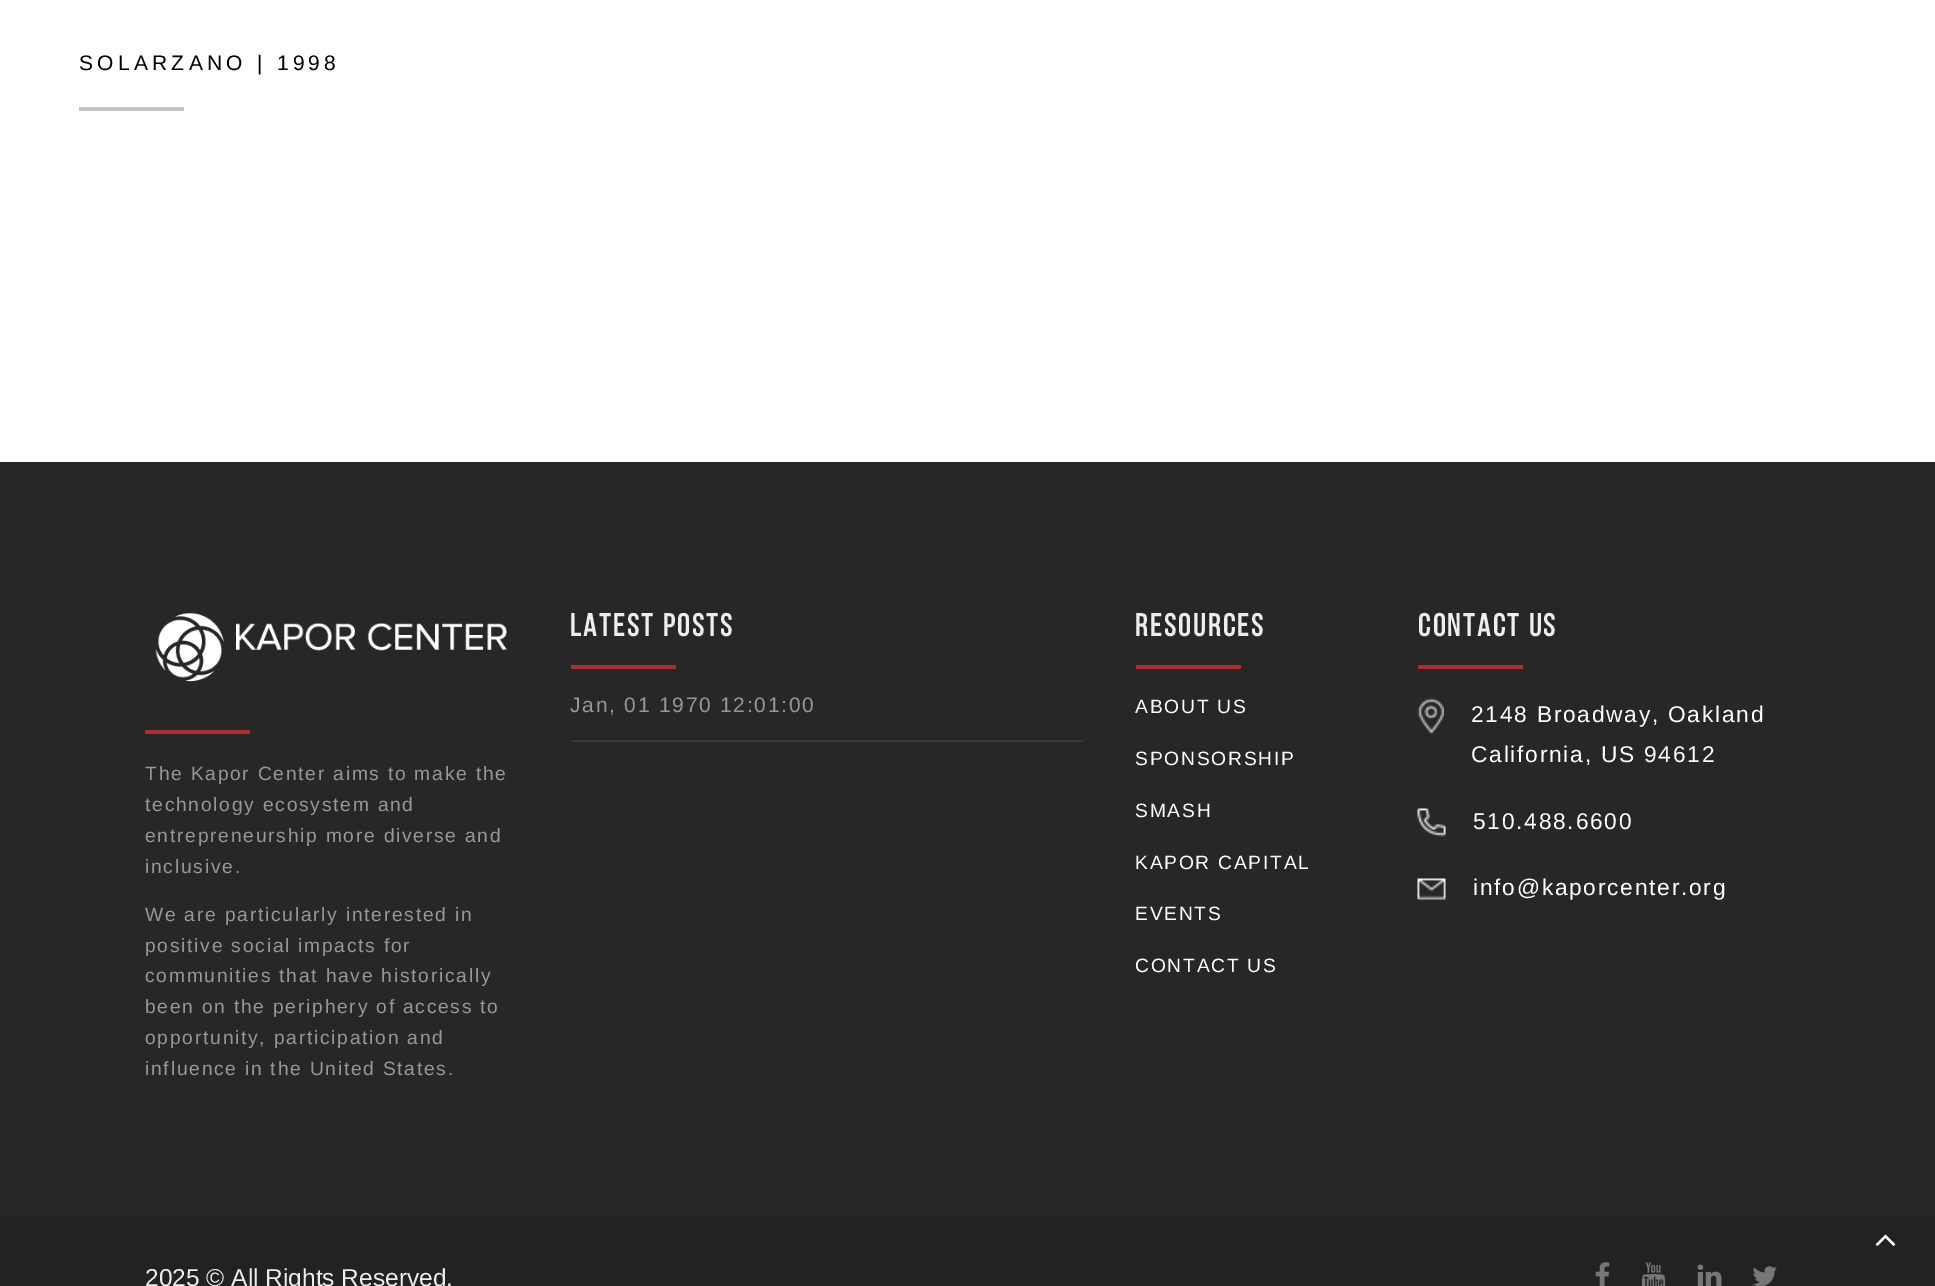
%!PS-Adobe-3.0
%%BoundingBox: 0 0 1935 1286
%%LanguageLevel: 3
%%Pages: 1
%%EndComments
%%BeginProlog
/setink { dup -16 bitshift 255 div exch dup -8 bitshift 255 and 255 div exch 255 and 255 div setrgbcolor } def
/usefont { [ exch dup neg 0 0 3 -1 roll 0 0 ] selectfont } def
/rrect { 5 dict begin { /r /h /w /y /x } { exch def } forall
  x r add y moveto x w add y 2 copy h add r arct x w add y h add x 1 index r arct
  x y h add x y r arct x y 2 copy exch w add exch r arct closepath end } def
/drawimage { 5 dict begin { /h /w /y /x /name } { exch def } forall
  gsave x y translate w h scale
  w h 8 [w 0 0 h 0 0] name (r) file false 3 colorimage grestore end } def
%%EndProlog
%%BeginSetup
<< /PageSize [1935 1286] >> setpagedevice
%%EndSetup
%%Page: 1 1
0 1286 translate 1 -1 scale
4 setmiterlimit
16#FFFFFF setink
0 0 1935 1286 rectfill
/LiberationSans-Regular 21 usefont
16#000000 setink
79 70 moveto 4.25 0 (SOLARZANO | 1998) ashow
16#C3C3C3 setink
79 107 105 4 rectfill
16#272727 setink
0 462 1935 754 rectfill
(img1.raw) 155 613 352 69 drawimage
16#AE2E2E setink
145 730 105 4 rectfill
/LiberationSans-Regular 19.25 usefont
16#979797 setink
145 780 moveto 1.75 0 (The Kapor Center aims to make the) ashow
145 811 moveto 1.75 0 (technology ecosystem and) ashow
145 842 moveto 1.75 0 (entrepreneurship more diverse and) ashow
145 873 moveto 1.75 0 (inclusive.) ashow
145 921 moveto 1.75 0 (We are particularly interested in) ashow
145 952 moveto 1.75 0 (positive social impacts for) ashow
145 982 moveto 1.75 0 (communities that have historically) ashow
145 1013 moveto 1.75 0 (been on the periphery of access to) ashow
145 1044 moveto 1.75 0 (opportunity, participation and) ashow
145 1075 moveto 1.75 0 (influence in the United States.) ashow
/BebasNeue-Bold 31.5 usefont
16#EEEEEE setink
570 636 moveto 2.6 0 (LATEST POSTS) ashow
16#AE2E2E setink
571 665 105 4 rectfill
16#393939 setink
571 740 512 2 rectfill
/LiberationSans-Regular 21 usefont
16#979797 setink
570 712 moveto 1.75 0 (Jan, 01 1970 12:01:00) ashow
/BebasNeue-Bold 31.5 usefont
16#EEEEEE setink
1135 636 moveto 2.6 0 (Resources) ashow
16#AE2E2E setink
1136 665 105 4 rectfill
/LiberationSans-Regular 19.25 usefont
16#FFFFFF setink
1135 713 moveto 1.75 0 (ABOUT US) ashow
1135 765 moveto 1.75 0 (SPONSORSHIP) ashow
1135 817 moveto 1.75 0 (SMASH) ashow
1135 869 moveto 1.75 0 (KAPOR CAPITAL) ashow
1135 920 moveto 1.75 0 (EVENTS) ashow
1135 972 moveto 1.75 0 (CONTACT US) ashow
/BebasNeue-Bold 31.5 usefont
16#EEEEEE setink
1418 636 moveto 2.6 0 (Contact Us) ashow
16#AE2E2E setink
1418 665 105 4 rectfill
(img2.raw) 1417 698 27 36 drawimage
/LiberationSans-Regular 22.75 usefont
16#FFFFFF setink
1471 722 moveto 1.75 0 (2148 Broadway, Oakland) ashow
1471 762 moveto 1.75 0 (California, US 94612) ashow
(img3.raw) 1417 808 29 29 drawimage
1473 829 moveto 1.75 0 (510.488.6600) ashow
(img4.raw) 1417 878 29 22 drawimage
1473 895 moveto 1.75 0 (info@kaporcenter.org) ashow
16#222222 setink
0 1216 1935 70 rectfill
/LiberationSans-Regular 24.5 usefont
16#EEEEEE setink
145 1286 moveto (2025 © All Rights Reserved.) show
(img5.raw) 1595 1262 15 24 drawimage
(img6.raw) 1641 1262 25 24 drawimage
(img7.raw) 1697 1264 25 22 drawimage
(img8.raw) 1752 1266 25 20 drawimage
16#222222 setink
1859 1215 52 52 5 rrect fill
(img9.raw) 1875 1234 21 12 drawimage
showpage
%%EOF
